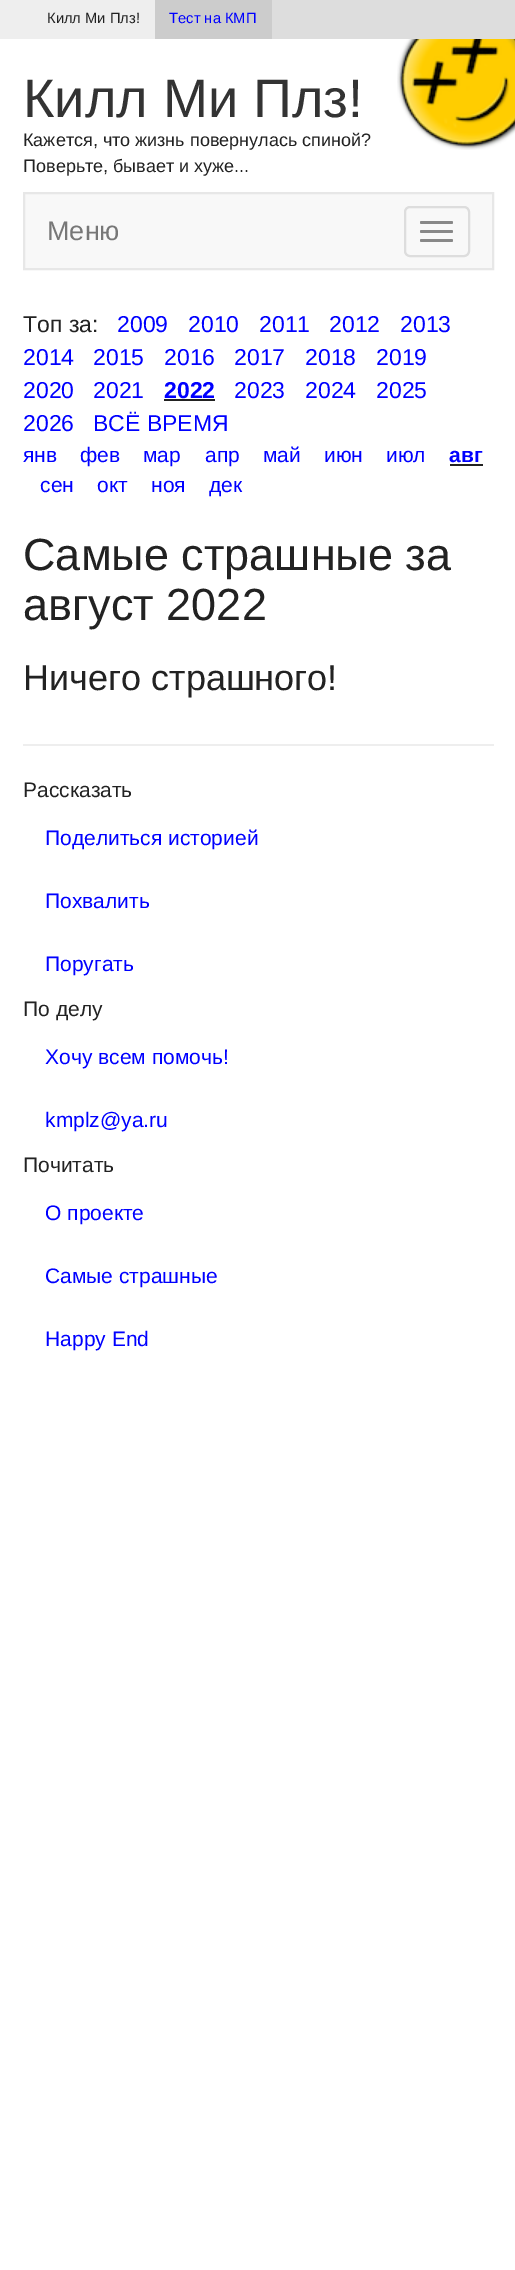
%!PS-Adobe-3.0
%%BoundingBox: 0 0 515 2270
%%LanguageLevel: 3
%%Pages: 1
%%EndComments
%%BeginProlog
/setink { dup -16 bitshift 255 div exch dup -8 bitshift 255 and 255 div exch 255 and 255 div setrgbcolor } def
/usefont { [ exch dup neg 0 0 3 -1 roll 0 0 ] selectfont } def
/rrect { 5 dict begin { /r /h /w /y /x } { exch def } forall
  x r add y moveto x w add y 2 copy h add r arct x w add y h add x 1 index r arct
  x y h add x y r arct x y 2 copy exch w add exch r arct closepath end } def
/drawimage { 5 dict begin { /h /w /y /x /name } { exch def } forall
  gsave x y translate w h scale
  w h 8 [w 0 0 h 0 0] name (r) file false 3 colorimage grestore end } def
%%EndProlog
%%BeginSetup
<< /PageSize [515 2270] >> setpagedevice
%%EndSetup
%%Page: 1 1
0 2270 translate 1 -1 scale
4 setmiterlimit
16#FFFFFF setink
0 0 515 2270 rectfill
(img1.raw) 397 39 118 111 drawimage
16#DDDDDD setink
272 0 243 39 rectfill
16#EEEEEE setink
0 0 155 39 rectfill
/LiberationSans-Regular 14.75 usefont
16#222222 setink
47 23 moveto (Килл Ми Плз!) show
16#CCCCCC setink
155 0 117 39 rectfill
16#0000FF setink
169 23 moveto (Тест на КМП) show
/LiberationSans-Regular 54 usefont
16#333333 setink
23 117 moveto (Килл Ми Плз!) show
/LiberationSans-Regular 18 usefont
16#222222 setink
23 146 moveto (Кажется, что жизнь повернулась спиной?) show
23 172 moveto (Поверьте, бывает и хуже...) show
16#F8F8F8 setink
24 193 moveto 493 193 lineto 493 269 lineto 24 269 lineto closepath gsave fill grestore
16#E7E7E7 setink
2 setlinewidth
stroke
/LiberationSans-Regular 27 usefont
16#777777 setink
47 240 moveto (Меню) show
16#DDDDDD setink
405 207 64 49 5 rrect stroke
16#888888 setink
420 221 33 3 1.5 rrect fill
420 230 33 3 1.5 rrect fill
420 239 33 3 1.5 rrect fill
/LiberationSans-Regular 23 usefont
16#222222 setink
23 332 moveto (Топ за:) show
16#0000FF setink
[
    [(2009) 117 332]
    [(2010) 188 332]
    [(2011) 259 332]
    [(2012) 329 332]
    [(2013) 400 332]
    [(2014) 23 365]
    [(2015) 93 365]
    [(2016) 164 365]
    [(2017) 234 365]
    [(2018) 305 365]
    [(2019) 376 365]
    [(2020) 23 398]
    [(2021) 93 398]
] { aload pop moveto show } forall
/LiberationSans-Bold 23 usefont
164 398 moveto (2022) show
16#222222 setink
164 399 51 2 rectfill
/LiberationSans-Regular 23 usefont
16#0000FF setink
[
    [(2023) 234 398]
    [(2024) 305 398]
    [(2025) 376 398]
    [(2026) 23 431]
    [(ВСЁ ВРЕМЯ) 93 431]
] { aload pop moveto show } forall
/LiberationSans-Regular 21 usefont
[
    [(янв) 23 462]
    [(фев) 80 462]
    [(мар) 143 462]
    [(апр) 205 462]
    [(май) 263 462]
    [(июн) 324 462]
    [(июл) 386 462]
] { aload pop moveto show } forall
/LiberationSans-Bold 21 usefont
449 462 moveto (авг) show
16#222222 setink
450 464 33 2 rectfill
/LiberationSans-Regular 21 usefont
16#0000FF setink
[
    [(сен) 40 492]
    [(окт) 97 492]
    [(ноя) 151 492]
    [(дек) 209 492]
] { aload pop moveto show } forall
/LiberationSans-Regular 45 usefont
16#222222 setink
23 570 moveto (Самые страшные за) show
23 620 moveto (август 2022) show
/LiberationSans-Regular 36 usefont
23 690 moveto (Ничего страшного!) show
16#EEEEEE setink
23 744 471 2 rectfill
/LiberationSans-Regular 21 usefont
16#222222 setink
23 797 moveto (Рассказать) show
16#0000FF setink
[
    [(Поделиться историей) 45 845]
    [(Похвалить) 45 908]
    [(Поругать) 45 971]
] { aload pop moveto show } forall
16#222222 setink
23 1016 moveto (По делу) show
16#0000FF setink
45 1064 moveto (Хочу всем помочь!) show
45 1127 moveto (kmplz@ya.ru) show
16#222222 setink
23 1172 moveto (Почитать) show
16#0000FF setink
[
    [(О проекте) 45 1220]
    [(Самые страшные) 45 1283]
    [(Happy End) 45 1346]
] { aload pop moveto show } forall
showpage
%%EOF
